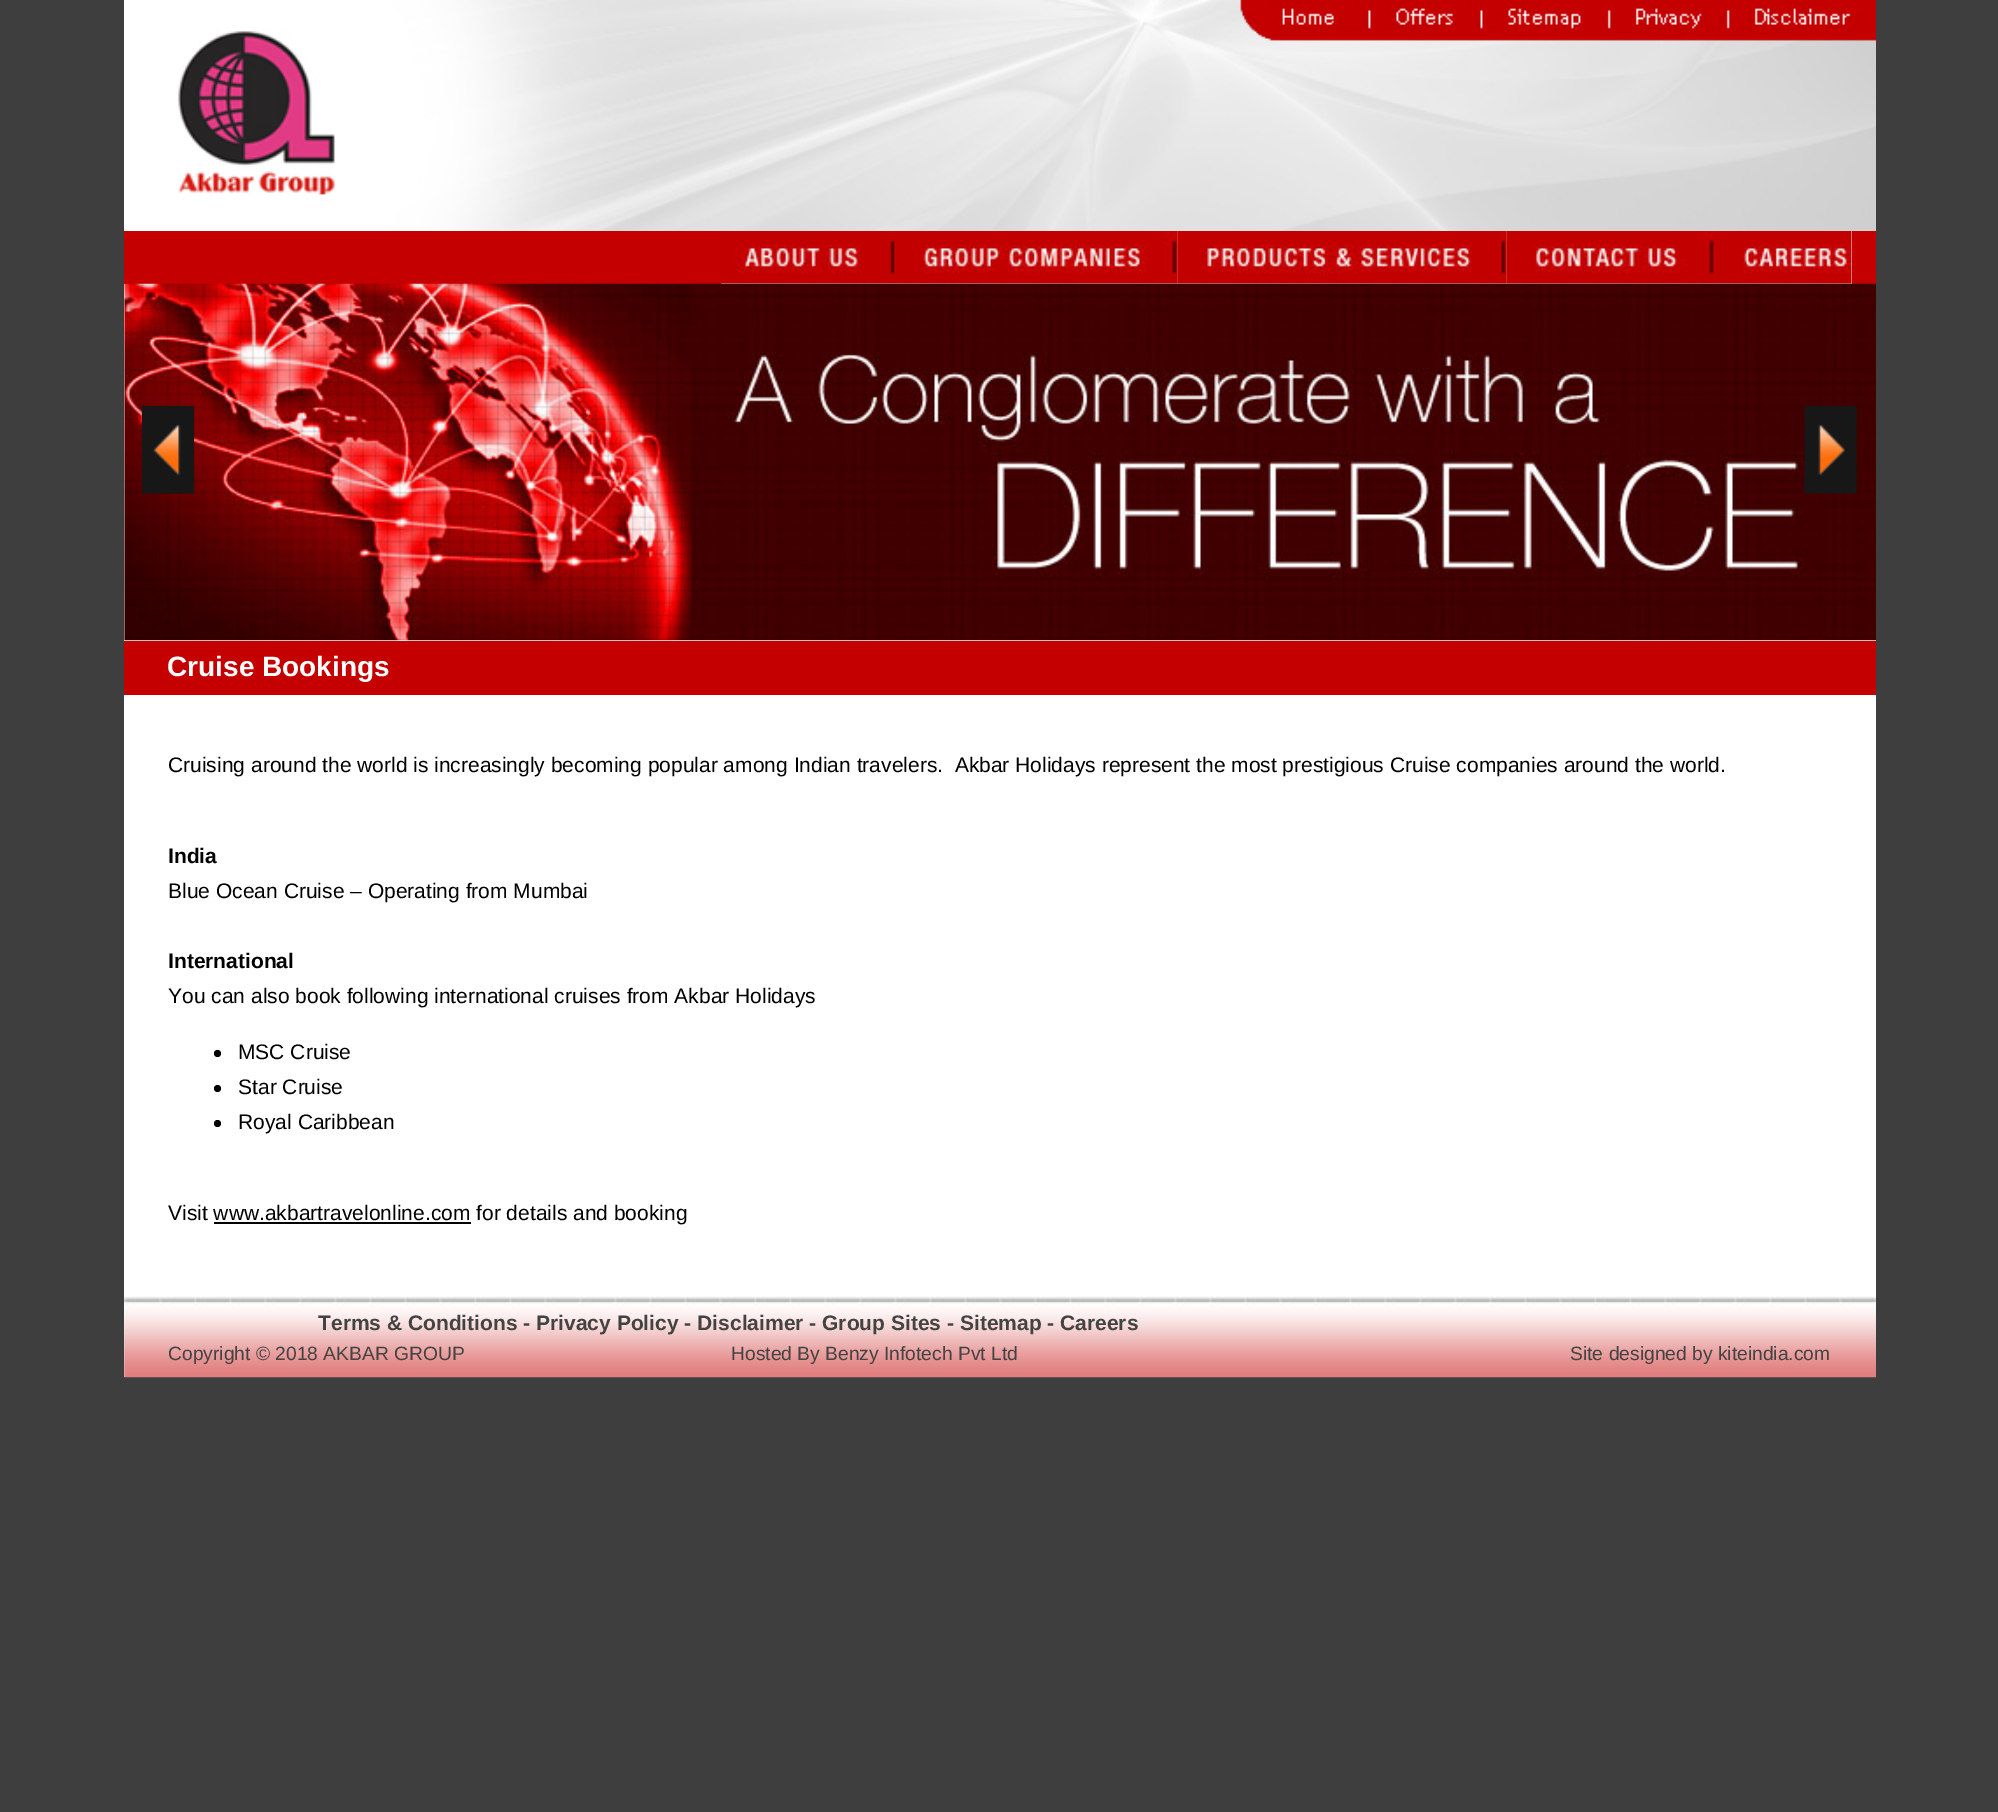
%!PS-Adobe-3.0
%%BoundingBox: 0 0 1998 1812
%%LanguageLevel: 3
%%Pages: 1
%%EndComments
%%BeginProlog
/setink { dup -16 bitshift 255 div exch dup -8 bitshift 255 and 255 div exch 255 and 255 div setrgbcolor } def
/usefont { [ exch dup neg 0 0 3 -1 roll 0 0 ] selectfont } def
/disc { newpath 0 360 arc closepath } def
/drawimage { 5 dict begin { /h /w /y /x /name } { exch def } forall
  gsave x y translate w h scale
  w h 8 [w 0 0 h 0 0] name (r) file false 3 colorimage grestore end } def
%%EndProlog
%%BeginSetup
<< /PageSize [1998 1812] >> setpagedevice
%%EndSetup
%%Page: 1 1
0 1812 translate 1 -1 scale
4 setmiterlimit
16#3E3E3E setink
0 0 1998 1812 rectfill
16#FFFFFF setink
124 0 1752 1377 rectfill
(img1.raw) 178 0 1698 231 drawimage
16#C40000 setink
124 231 1752 53 rectfill
16#EEEEEE setink
721 283 175 1 rectfill
(img2.raw) 721 231 175 53 drawimage
896 231 611 53 rectfill
(img3.raw) 896 231 282 53 drawimage
(img4.raw) 1177 231 330 53 drawimage
1507 283 208 1 rectfill
(img5.raw) 1506 231 209 53 drawimage
1715 231 137 53 rectfill
(img6.raw) 1715 231 137 53 drawimage
(img7.raw) 124 283 1752 358 drawimage
(img8.raw) 141 406 54 88 drawimage
(img9.raw) 1804 406 53 88 drawimage
16#C40000 setink
124 641 1752 54 rectfill
/LiberationSans-Bold 28 usefont
16#FFFFFF setink
167 676 moveto (Cruise Bookings) show
/LiberationSans-Regular 21 usefont
16#000000 setink
168 772 moveto (Cruising around the world is increasingly becoming popular among Indian travelers.  Akbar Holidays represent the most prestigious Cruise companies around the world.) show
/LiberationSans-Bold 21 usefont
168 863 moveto (India) show
/LiberationSans-Regular 21 usefont
168 898 moveto (Blue Ocean Cruise – Operating from Mumbai) show
/LiberationSans-Bold 21 usefont
168 968 moveto (International) show
/LiberationSans-Regular 21 usefont
168 1003 moveto (You can also book following international cruises from Akbar Holidays) show
217.5 1053.5 3.5 disc fill
238 1059 moveto (MSC Cruise) show
217.5 1088.5 3.5 disc fill
238 1094 moveto (Star Cruise) show
217.5 1123.5 3.5 disc fill
238 1129 moveto (Royal Caribbean) show
168 1220 moveto (Visit www.akbartravelonline.com for details and booking) show
214 1222 257 2 rectfill
(img10.raw) 124 1296 1752 82 drawimage
/LiberationSans-Bold 21 usefont
16#434343 setink
318 1330 moveto (Terms & Conditions - Privacy Policy - Disclaimer - Group Sites - Sitemap - Careers) show
/LiberationSans-Regular 19.25 usefont
[
    [(Copyright © 2018 AKBAR GROUP) 168 1360]
    [(Hosted By Benzy Infotech Pvt Ltd) 731 1360]
    [(Site designed by kiteindia.com) 1570 1360]
] { aload pop moveto show } forall
showpage
%%EOF
